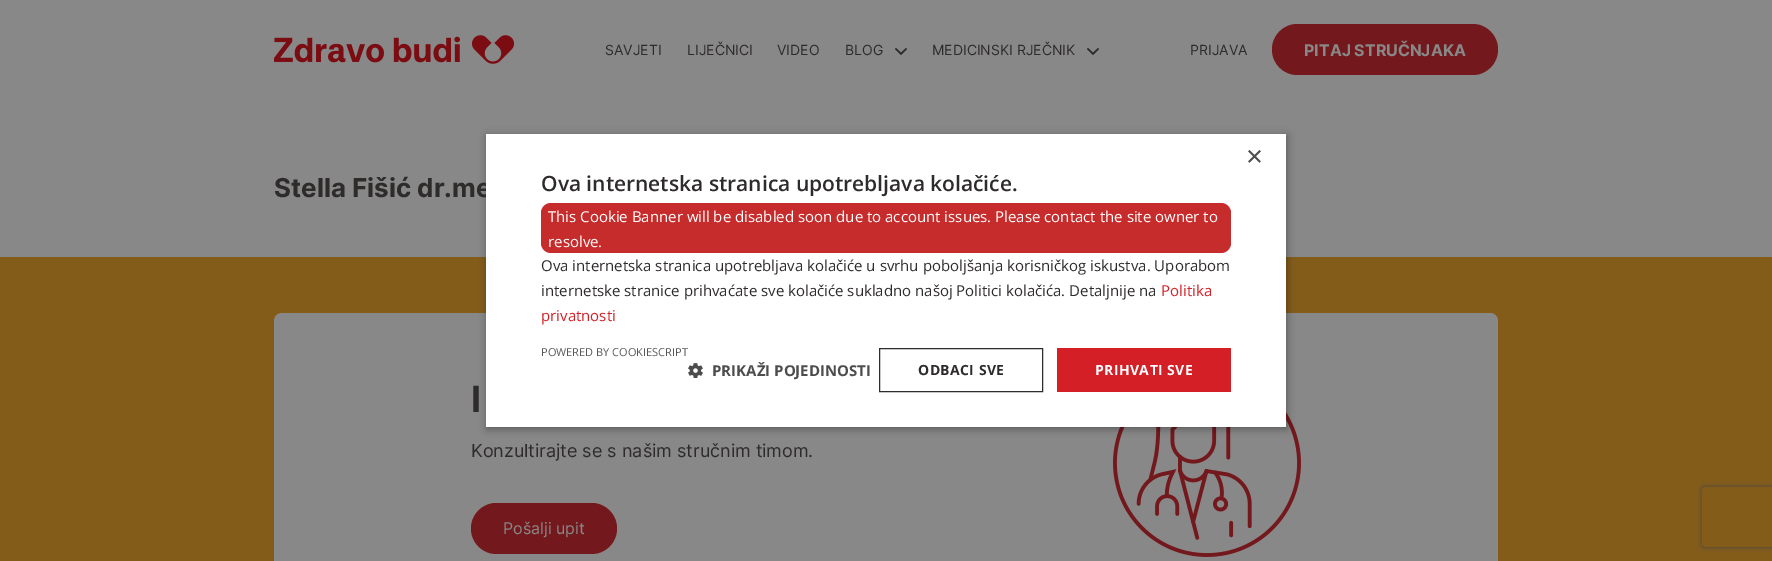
%!PS-Adobe-3.0
%%BoundingBox: 0 0 1772 561
%%LanguageLevel: 3
%%Pages: 1
%%EndComments
%%BeginProlog
/setink { dup -16 bitshift 255 div exch dup -8 bitshift 255 and 255 div exch 255 and 255 div setrgbcolor } def
/usefont { [ exch dup neg 0 0 3 -1 roll 0 0 ] selectfont } def
/setalpha { dup .setfillconstantalpha .setstrokeconstantalpha } def
/rrect { 5 dict begin { /r /h /w /y /x } { exch def } forall
  x r add y moveto x w add y 2 copy h add r arct x w add y h add x 1 index r arct
  x y h add x y r arct x y 2 copy exch w add exch r arct closepath end } def
/softshadow { 12 dict begin { /a /b /q /h /w /y /x } { exch def } forall gsave /was 0 def
  9 -2 -9 { dup b mul 4 div /e exch def 1 sub .425 mul 2.718 exch exp 1 add a .99 .min exch div /now exch def
    1 1 now sub 1 was sub div sub setalpha /was now def
    w h .min e 2 mul add 0 gt { x e sub y e sub w e 2 mul add h e 2 mul add
      q e add b .6 mul add w h .min 2 div e add .min 0 .max rrect fill } if } for grestore end } def
/drawimage { 5 dict begin { /h /w /y /x /name } { exch def } forall
  gsave x y translate w h scale
  w h 8 [w 0 0 h 0 0] name (r) file false 3 colorimage grestore end } def
%%EndProlog
%%BeginSetup
<< /PageSize [1772 561] /PageUsesTransparency true >> setpagedevice
%%EndSetup
%%Page: 1 1
0 .pushpdf14devicefilter
0 561 translate 1 -1 scale
4 setmiterlimit
16#888888 setink
0 0 1772 561 rectfill
(img1.raw) 274 35 240 29 drawimage
/Inter-Regular 14 usefont
16#2E2B2B setink
[
    [(SAVJETI) 605 55]
    [(LIJEČNICI) 687 55]
    [(VIDEO) 777 55]
    [(BLOG) 845 55]
] { aload pop moveto show } forall
(img2.raw) 895 48 12 7 drawimage
932 55 moveto (MEDICINSKI RJEČNIK) show
(img2.raw) 1087 48 12 7 drawimage
1190 55 moveto (PRIJAVA) show
16#73181C setink
1272 24 226 51 25.5 rrect fill
/Inter-Bold 16 usefont
16#888888 setink
1304 56 moveto (PITAJ STRUČNJAKA) show
16#835C1A setink
0 257 1772 304 rectfill
16#888888 setink
274 313 1224 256 8 rrect fill
(img4.raw) 1113 412 188 145 drawimage
16#000000 setink
487 136 800 293 0 4 0.35 softshadow
/Inter-Bold 26 usefont
16#2E2B2B setink
274 197 moveto (Stella Fišić dr.me) show
16#FFFFFF setink
486 134 800 293 rectfill
/LiberationSans-Regular 29 usefont
16#4D4D4D setink
1246 166 moveto (×) show
/OpenSans-SemiBold 21 usefont
16#2E2B2B setink
541 191 moveto (Ova internetska stranica upotrebljava kolačiće.) show
16#C62C2C setink
541 203 690 50 10 rrect fill
/OpenSans-Regular 15 usefont
16#FFFFFF setink
548 222 moveto (This Cookie Banner will be disabled soon due to account issues. Please contact the site owner to) show
548 247 moveto (resolve.) show
16#2E2B2B setink
541 271 moveto (Ova internetska stranica upotrebljava kolačiće u svrhu poboljšanja korisničkog iskustva. Uporabom) show
541 296 moveto (internetske stranice prihvaćate sve kolačiće sukladno našoj Politici kolačića. Detaljnije na) show
16#D51F26 setink
1161 296 moveto (Politika) show
541 321 moveto (privatnosti) show
/OpenSans-Regular 11 usefont
16#575757 setink
541 356 moveto (POWERED BY COOKIESCRIPT) show
(img3.raw) 688 363 15 15 drawimage
/OpenSans-Bold 15 usefont
16#4D4D4D setink
712 376 moveto (PRIKAŽI POJEDINOSTI) show
16#2D2D2D setink
879.5 348.5 163 43 rectstroke
/OpenSans-Bold 14 usefont
16#2E2B2B setink
918 375 moveto 0.4 0 (ODBACI SVE) ashow
16#D51F26 setink
1057 348 174 44 rectfill
16#FFFFFF setink
1095 375 moveto 0.4 0 (PRIHVATI SVE) ashow
/Inter-Bold 36 usefont
16#2E2B2B setink
471 412 moveto (I) show
/Inter-Regular 18 usefont
471 457 moveto (Konzultirajte se s našim stručnim timom.) show
16#73181C setink
471 503 146 51 25.5 rrect fill
/Inter-Regular 16 usefont
16#888888 setink
503 534 moveto (Pošalji upit) show
gsave
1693 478 moveto 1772 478 lineto 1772 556 lineto 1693 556 lineto closepath 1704 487 moveto 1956 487 lineto 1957 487 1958 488 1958 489 curveto 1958 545 lineto 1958 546 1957 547 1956 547 curveto 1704 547 lineto 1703 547 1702 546 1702 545 curveto 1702 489 lineto 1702 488 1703 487 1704 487 curveto closepath eoclip newpath
16#494949 setink
1702 487 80 60 2 2.5 1 softshadow
grestore
.poppdf14devicefilter showpage
%%EOF
